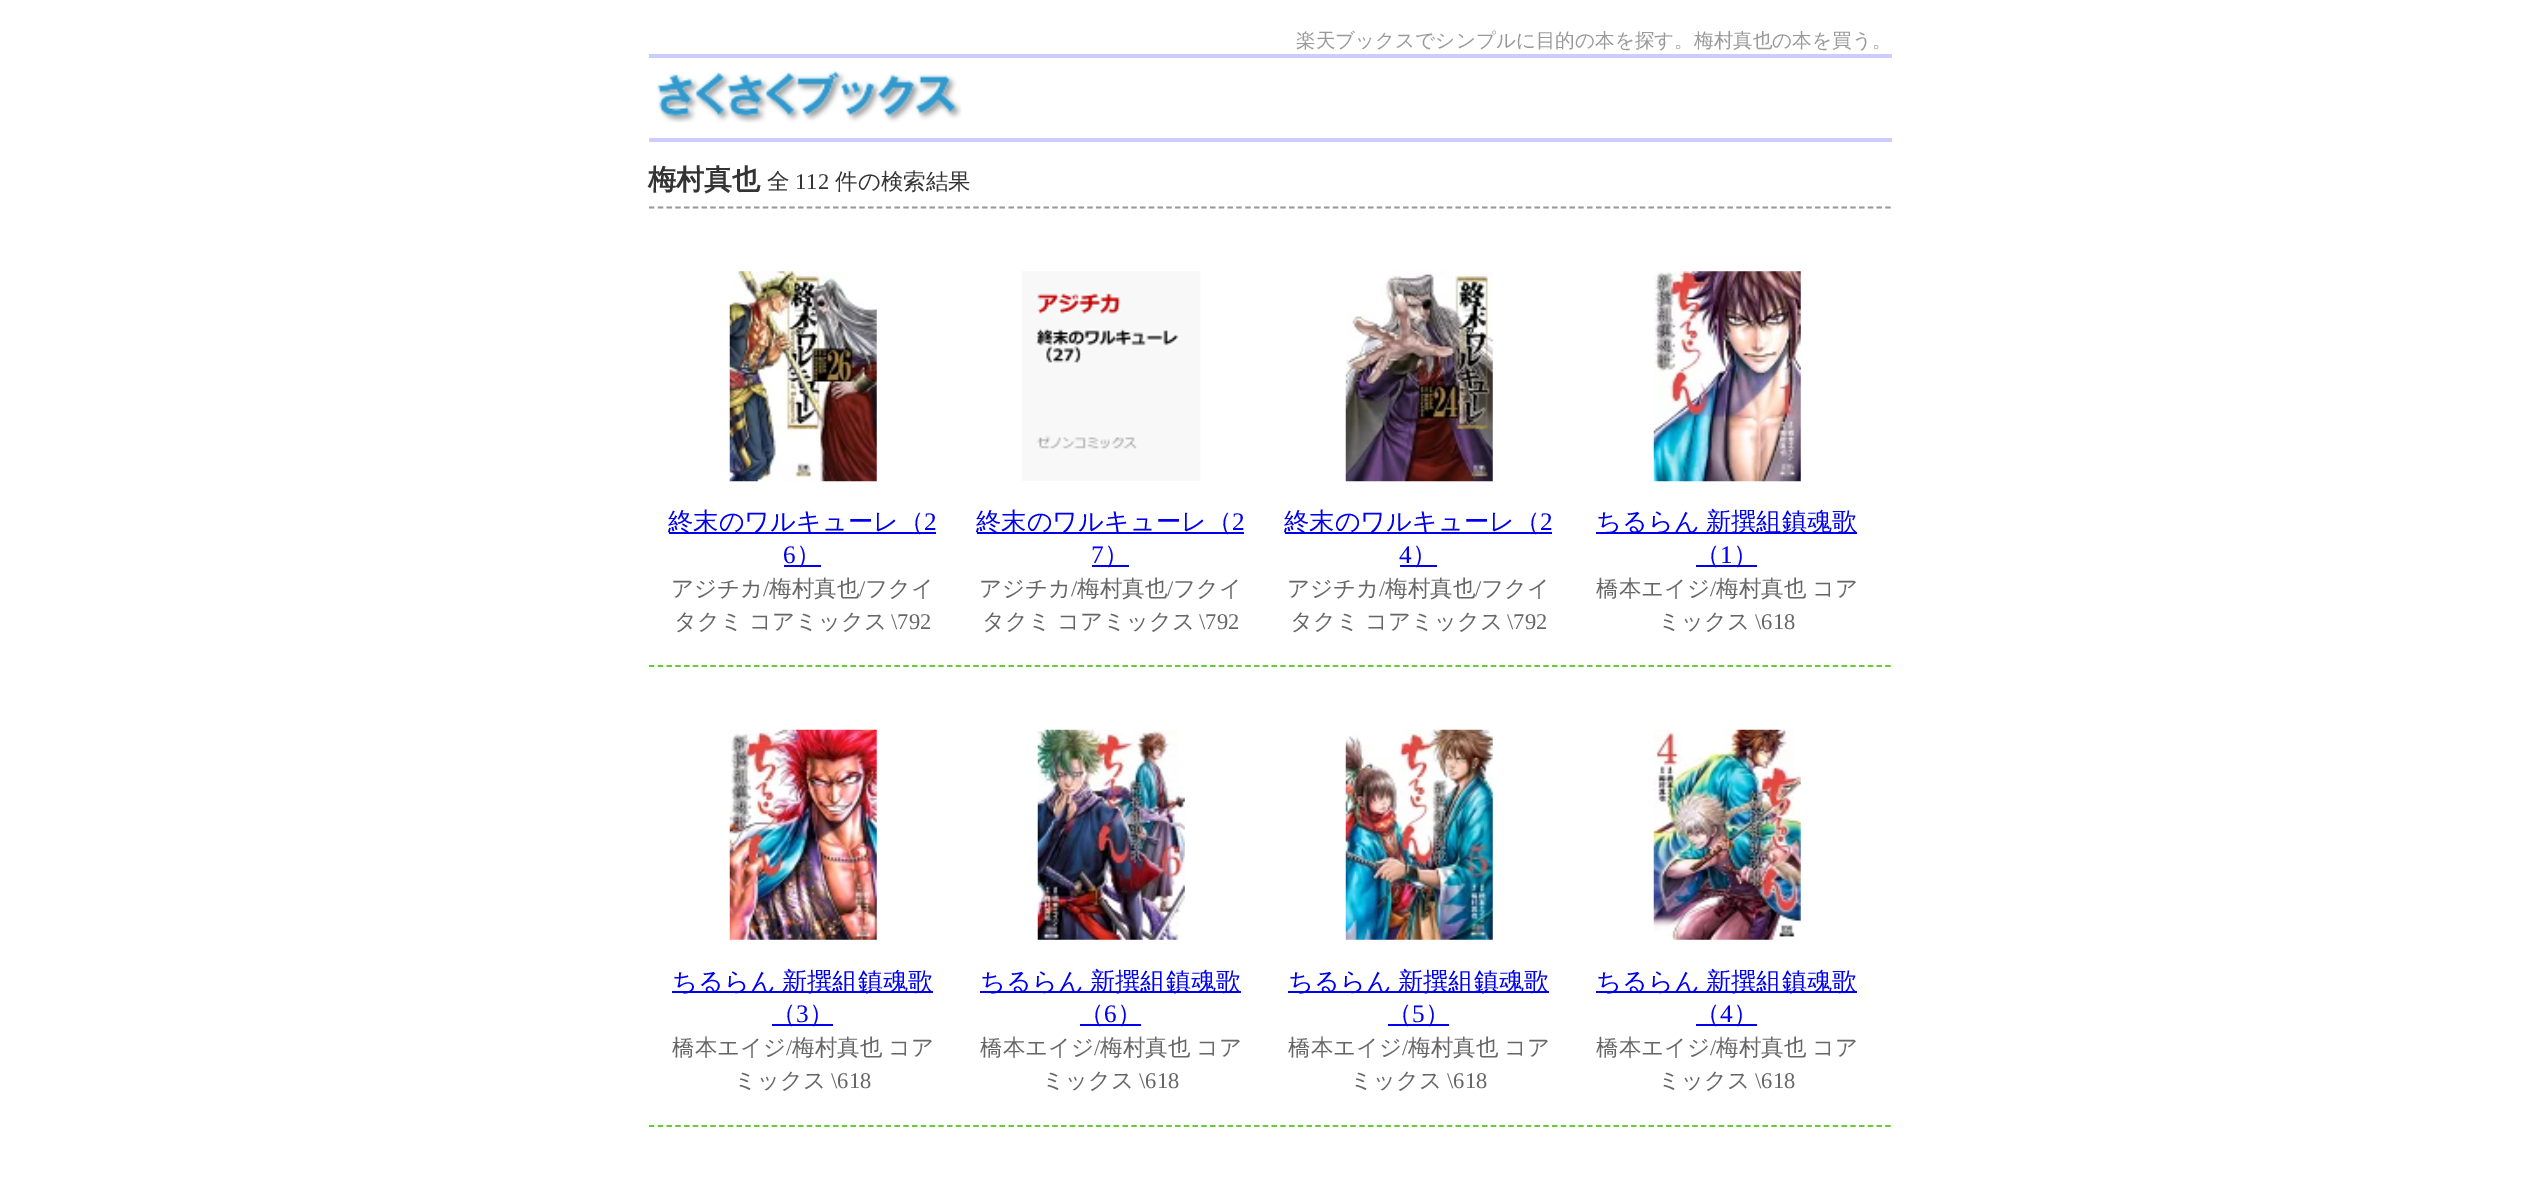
%!PS-Adobe-3.0
%%BoundingBox: 0 0 2538 1187
%%LanguageLevel: 3
%%Pages: 1
%%EndComments
%%BeginProlog
/setink { dup -16 bitshift 255 div exch dup -8 bitshift 255 and 255 div exch 255 and 255 div setrgbcolor } def
/usefont { [ exch dup neg 0 0 3 -1 roll 0 0 ] selectfont } def
/drawimage { 5 dict begin { /h /w /y /x /name } { exch def } forall
  gsave x y translate w h scale
  w h 8 [w 0 0 h 0 0] name (r) file false 3 colorimage grestore end } def
%%EndProlog
%%BeginSetup
<< /PageSize [2538 1187] >> setpagedevice
%%EndSetup
%%Page: 1 1
0 1187 translate 1 -1 scale
4 setmiterlimit
16#FFFFFF setink
0 0 2538 1187 rectfill
/WenQuanYiZenHei-Medium 19.6 usefont
16#999999 setink
1296 47 moveto (楽天ブックスでシンプルに目的の本を探す。梅村真也の本を買う。) show
16#CCCCFF setink
649 54 1243 4 rectfill
649 138 1243 4 rectfill
(img1.raw) 656 70 306 53 drawimage
16#999999 setink
1.8 setlinewidth
[5.25 3.52] 0 setdash
649 207.5 moveto 1892 207.5 lineto stroke
/WenQuanYiZenHei-Bold 28 usefont
16#333333 setink
648 189 moveto (梅村真也) show
/WenQuanYiZenHei-Medium 22.5 usefont
767 189 moveto (全) show
/LiberationSerif-Regular 22.5 usefont
795 189 moveto (112) show
/WenQuanYiZenHei-Medium 22.5 usefont
835 189 moveto (件の検索結果) show
16#66CC33 setink
649 666 moveto 1892 666 lineto stroke
(img2.raw) 729 271 148 211 drawimage
16#0000EE setink
669 532 267 2 rectfill
/WenQuanYiZenHei-Medium 25.25 usefont
668 530 moveto (終末のワルキューレ（) show
/LiberationSerif-Regular 25.25 usefont
924 530 moveto (2) show
783 563 moveto (6) show
784 565 37 2 rectfill
/WenQuanYiZenHei-Medium 25.25 usefont
796 563 moveto (）) show
/WenQuanYiZenHei-Medium 22.5 usefont
16#666666 setink
671 596 moveto (アジチカ) show
/LiberationSerif-Regular 22.5 usefont
763 596 moveto (/) show
/WenQuanYiZenHei-Medium 22.5 usefont
769 596 moveto (梅村真也) show
/LiberationSerif-Regular 22.5 usefont
859 596 moveto (/) show
/WenQuanYiZenHei-Medium 22.5 usefont
865 596 moveto (フクイ) show
674 629 moveto -1 0 32 (タクミ コアミックス) widthshow
/LiberationSerif-Regular 22.5 usefont
891 629 moveto (\\792) show
(img3.raw) 1022 271 179 210 drawimage
16#0000EE setink
977 532 267 2 rectfill
/WenQuanYiZenHei-Medium 25.25 usefont
976 530 moveto (終末のワルキューレ（) show
/LiberationSerif-Regular 25.25 usefont
1232 530 moveto (2) show
1091 563 moveto (7) show
1092 565 37 2 rectfill
/WenQuanYiZenHei-Medium 25.25 usefont
1104 563 moveto (）) show
/WenQuanYiZenHei-Medium 22.5 usefont
16#666666 setink
979 596 moveto (アジチカ) show
/LiberationSerif-Regular 22.5 usefont
1071 596 moveto (/) show
/WenQuanYiZenHei-Medium 22.5 usefont
1077 596 moveto (梅村真也) show
/LiberationSerif-Regular 22.5 usefont
1167 596 moveto (/) show
/WenQuanYiZenHei-Medium 22.5 usefont
1173 596 moveto (フクイ) show
982 629 moveto -1 0 32 (タクミ コアミックス) widthshow
/LiberationSerif-Regular 22.5 usefont
1199 629 moveto (\\792) show
(img4.raw) 1345 271 148 211 drawimage
16#0000EE setink
1285 532 267 2 rectfill
/WenQuanYiZenHei-Medium 25.25 usefont
1284 530 moveto (終末のワルキューレ（) show
/LiberationSerif-Regular 25.25 usefont
1540 530 moveto (2) show
1399 563 moveto (4) show
1400 565 37 2 rectfill
/WenQuanYiZenHei-Medium 25.25 usefont
1412 563 moveto (）) show
/WenQuanYiZenHei-Medium 22.5 usefont
16#666666 setink
1287 596 moveto (アジチカ) show
/LiberationSerif-Regular 22.5 usefont
1379 596 moveto (/) show
/WenQuanYiZenHei-Medium 22.5 usefont
1385 596 moveto (梅村真也) show
/LiberationSerif-Regular 22.5 usefont
1475 596 moveto (/) show
/WenQuanYiZenHei-Medium 22.5 usefont
1481 596 moveto (フクイ) show
1290 629 moveto -1 0 32 (タクミ コアミックス) widthshow
/LiberationSerif-Regular 22.5 usefont
1507 629 moveto (\\792) show
(img5.raw) 1653 271 148 211 drawimage
16#0000EE setink
1596 532 261 2 rectfill
/WenQuanYiZenHei-Medium 25.25 usefont
1596 530 moveto -1 0 32 (ちるらん 新撰組鎮魂歌) widthshow
1696 565 61 2 rectfill
1695 563 moveto (（) show
/LiberationSerif-Regular 25.25 usefont
1720 563 moveto (1) show
/WenQuanYiZenHei-Medium 25.25 usefont
1733 563 moveto (）) show
/WenQuanYiZenHei-Medium 22.5 usefont
16#666666 setink
1596 596 moveto (橋本エイジ) show
/LiberationSerif-Regular 22.5 usefont
1710 596 moveto (/) show
/WenQuanYiZenHei-Medium 22.5 usefont
1716 596 moveto -1 0 32 (梅村真也 コア) widthshow
1658 629 moveto (ミックス) show
/LiberationSerif-Regular 22.5 usefont
1755 629 moveto (\\618) show
16#66CC33 setink
649 1126 moveto 1892 1126 lineto stroke
(img6.raw) 729 729 148 211 drawimage
16#0000EE setink
672 991 261 2 rectfill
/WenQuanYiZenHei-Medium 25.25 usefont
672 990 moveto -1 0 32 (ちるらん 新撰組鎮魂歌) widthshow
772 1024 61 2 rectfill
771 1022 moveto (（) show
/LiberationSerif-Regular 25.25 usefont
796 1022 moveto (3) show
/WenQuanYiZenHei-Medium 25.25 usefont
809 1022 moveto (）) show
/WenQuanYiZenHei-Medium 22.5 usefont
16#666666 setink
672 1055 moveto (橋本エイジ) show
/LiberationSerif-Regular 22.5 usefont
786 1055 moveto (/) show
/WenQuanYiZenHei-Medium 22.5 usefont
792 1055 moveto -1 0 32 (梅村真也 コア) widthshow
734 1088 moveto (ミックス) show
/LiberationSerif-Regular 22.5 usefont
831 1088 moveto (\\618) show
(img7.raw) 1037 729 148 211 drawimage
16#0000EE setink
980 991 261 2 rectfill
/WenQuanYiZenHei-Medium 25.25 usefont
980 990 moveto -1 0 32 (ちるらん 新撰組鎮魂歌) widthshow
1080 1024 61 2 rectfill
1079 1022 moveto (（) show
/LiberationSerif-Regular 25.25 usefont
1104 1022 moveto (6) show
/WenQuanYiZenHei-Medium 25.25 usefont
1117 1022 moveto (）) show
/WenQuanYiZenHei-Medium 22.5 usefont
16#666666 setink
980 1055 moveto (橋本エイジ) show
/LiberationSerif-Regular 22.5 usefont
1094 1055 moveto (/) show
/WenQuanYiZenHei-Medium 22.5 usefont
1100 1055 moveto -1 0 32 (梅村真也 コア) widthshow
1042 1088 moveto (ミックス) show
/LiberationSerif-Regular 22.5 usefont
1139 1088 moveto (\\618) show
(img8.raw) 1345 729 148 211 drawimage
16#0000EE setink
1288 991 261 2 rectfill
/WenQuanYiZenHei-Medium 25.25 usefont
1288 990 moveto -1 0 32 (ちるらん 新撰組鎮魂歌) widthshow
1388 1024 61 2 rectfill
1387 1022 moveto (（) show
/LiberationSerif-Regular 25.25 usefont
1412 1022 moveto (5) show
/WenQuanYiZenHei-Medium 25.25 usefont
1425 1022 moveto (）) show
/WenQuanYiZenHei-Medium 22.5 usefont
16#666666 setink
1288 1055 moveto (橋本エイジ) show
/LiberationSerif-Regular 22.5 usefont
1402 1055 moveto (/) show
/WenQuanYiZenHei-Medium 22.5 usefont
1408 1055 moveto -1 0 32 (梅村真也 コア) widthshow
1350 1088 moveto (ミックス) show
/LiberationSerif-Regular 22.5 usefont
1447 1088 moveto (\\618) show
(img9.raw) 1653 729 148 211 drawimage
16#0000EE setink
1596 991 261 2 rectfill
/WenQuanYiZenHei-Medium 25.25 usefont
1596 990 moveto -1 0 32 (ちるらん 新撰組鎮魂歌) widthshow
1696 1024 61 2 rectfill
1695 1022 moveto (（) show
/LiberationSerif-Regular 25.25 usefont
1720 1022 moveto (4) show
/WenQuanYiZenHei-Medium 25.25 usefont
1733 1022 moveto (）) show
/WenQuanYiZenHei-Medium 22.5 usefont
16#666666 setink
1596 1055 moveto (橋本エイジ) show
/LiberationSerif-Regular 22.5 usefont
1710 1055 moveto (/) show
/WenQuanYiZenHei-Medium 22.5 usefont
1716 1055 moveto -1 0 32 (梅村真也 コア) widthshow
1658 1088 moveto (ミックス) show
/LiberationSerif-Regular 22.5 usefont
1755 1088 moveto (\\618) show
showpage
%%EOF
